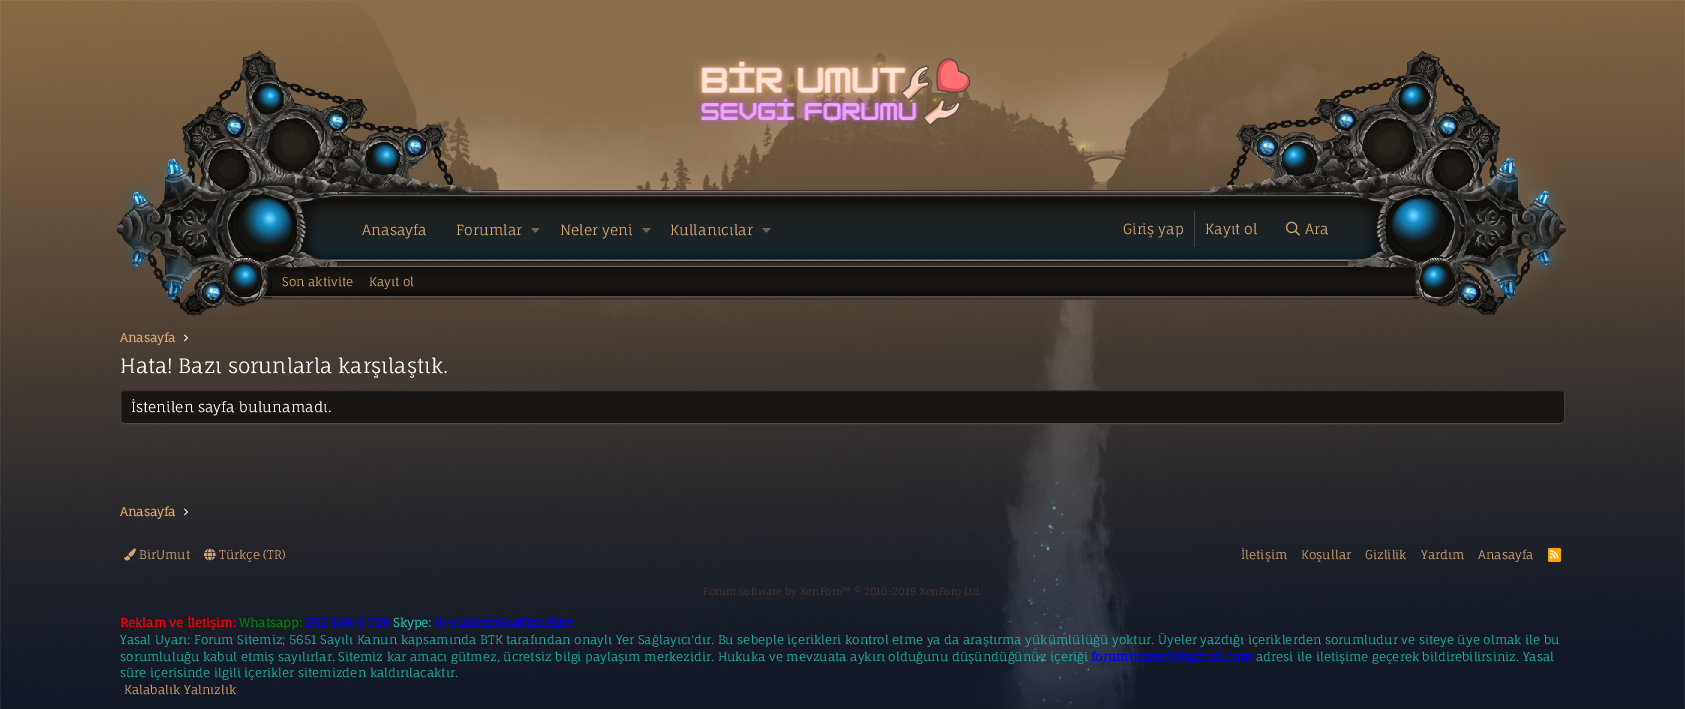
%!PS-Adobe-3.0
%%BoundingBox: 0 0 1685 709
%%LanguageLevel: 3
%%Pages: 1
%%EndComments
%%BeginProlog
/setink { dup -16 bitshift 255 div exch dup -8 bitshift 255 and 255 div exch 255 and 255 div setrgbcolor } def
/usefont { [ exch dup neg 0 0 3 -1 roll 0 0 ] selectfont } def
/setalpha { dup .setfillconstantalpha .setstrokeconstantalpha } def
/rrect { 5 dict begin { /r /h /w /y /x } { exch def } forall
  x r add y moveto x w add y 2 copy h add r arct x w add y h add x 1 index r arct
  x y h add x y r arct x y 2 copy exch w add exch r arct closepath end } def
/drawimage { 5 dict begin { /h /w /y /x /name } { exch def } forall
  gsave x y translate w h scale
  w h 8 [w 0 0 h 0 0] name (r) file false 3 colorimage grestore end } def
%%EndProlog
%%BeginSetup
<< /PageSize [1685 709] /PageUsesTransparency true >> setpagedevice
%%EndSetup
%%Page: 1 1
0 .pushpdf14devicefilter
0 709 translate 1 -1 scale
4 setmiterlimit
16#FFFFFF setink
0 0 1685 709 rectfill
(img1.raw) 0 0 1685 709 drawimage
(img2.raw) 121 50 365 149 drawimage
(img3.raw) 486 190 713 9 drawimage
(img4.raw) 693 56 278 72 drawimage
(img5.raw) 1199 50 361 149 drawimage
(img6.raw) 116 199 221 69 drawimage
(img7.raw) 337 199 1011 69 drawimage
/FaunaOne-Regular 14 usefont
16#D3A46D setink
362 235 moveto (Anasayfa) show
456 235 moveto (Forumlar) show
(img8.raw) 531 228 9 5 drawimage
560 235 moveto (Neler yeni) show
(img8.raw) 642 228 9 5 drawimage
670 235 moveto (Kullanıcılar) show
(img8.raw) 762 228 9 5 drawimage
1123 234 moveto (Giriş yap) show
0.15 setalpha
16#FFFFFF setink
1194 211 1 36 rectfill
1 setalpha
16#D3A46D setink
1205 234 moveto (Kayıt ol) show
(img9.raw) 1286 221 14 15 drawimage
1305 234 moveto (Ara) show
(img10.raw) 1348 199 221 69 drawimage
(img11.raw) 130 268 142 49 drawimage
(img12.raw) 272 268 1141 32 drawimage
16#53463F setink
272 297 1141 1 rectfill
/FaunaOne-Regular 12 usefont
16#D3A46D setink
282 286 moveto (Son aktivite) show
369 286 moveto (Kayıt ol) show
(img13.raw) 1413 268 144 47 drawimage
/FaunaOne-Bold 12 usefont
120 342 moveto (Anasayfa) show
(img14.raw) 184 334 4 8 drawimage
/FaunaOne-Regular 20 usefont
16#FFFFFF setink
120 373 moveto (Hata! Bazı sorunlarla karşılaştık.) show
16#191513 setink
120 390 1445 34 4 rrect fill
16#3C322D setink
121.5 391.5 moveto 124 390.5 lineto 1561 390.5 lineto 1563.5 391.5 lineto stroke
16#443A34 setink
1563.5 391.5 moveto 1564 392 1564.5 393 1564.5 394 curveto 1564.5 420 lineto 1564.5 421 1564 422 1563.5 422.5 curveto stroke
16#53463F setink
1563.5 422.5 moveto 1561 423.5 lineto 124 423.5 lineto 121.5 422.5 lineto stroke
16#443A34 setink
121.5 422.5 moveto 121 422 120.5 421 120.5 420 curveto 120.5 394 lineto 120.5 393 121 392 121.5 391.5 curveto stroke
/FaunaOne-Regular 14 usefont
16#FFFFFF setink
131 412 moveto (İstenilen sayfa bulunamadı.) show
/FaunaOne-Bold 12 usefont
16#D3A46D setink
120 516 moveto (Anasayfa) show
(img15.raw) 184 508 4 8 drawimage
(img16.raw) 124 548 12 13 drawimage
/FaunaOne-Regular 12 usefont
139 559 moveto (BirUmut) show
(img17.raw) 204 548 12 13 drawimage
[
    [(Türkçe \(TR\)) 219 559]
    [(İletişim) 1241 559]
    [(Koşullar) 1301 559]
    [(Gizlilik) 1365 559]
    [(Yardım) 1421 559]
    [(Anasayfa) 1478 559]
] { aload pop moveto show } forall
16#FFA500 setink
1548 548 13 14 2 rrect fill
(img18.raw) 1550 550 9 9 drawimage
/FaunaOne-Regular 10 usefont
16#49342B setink
703 595 moveto (Forum software by XenForo™ © 2010-2019 XenForo Ltd.) show
/FaunaOne-Bold 12 usefont
16#FF0000 setink
120 627 moveto (Reklam ve İletişim:) show
16#20B2AA setink
393 627 moveto (Skype:) show
16#0000FF setink
435 627 moveto (live:2dedd6a4f1da91be) show
/FaunaOne-Regular 12 usefont
16#20B2AA setink
120 644 moveto (Yasal Uyarı: Forum Sitemiz; 5651 Sayılı Kanun kapsamında BTK tarafından onaylı Yer Sağlayıcı'dır. Bu sebeple içerikleri kontrol etme ya da araştırma yükümlülüğü yoktur. Üyeler yazdığı içeriklerden sorumludur ve siteye üye olmak ile bu) show
120 661 moveto (sorumluluğu kabul etmiş sayılırlar. Sitemiz kar amacı gütmez, ücretsiz bilgi paylaşım merkezidir. Hukuka ve mevzuata aykırı olduğunu düşündüğünüz içeriği) show
/FaunaOne-Bold 12 usefont
16#0000FF setink
1091 661 moveto (forumhizmeti@gmail.com) show
/FaunaOne-Regular 12 usefont
16#20B2AA setink
1256 661 moveto (adresi ile iletişime geçerek bildirebilirsiniz. Yasal) show
120 677 moveto (süre içerisinde ilgili içerikler sitemizden kaldırılacaktır.) show
16#D3A46D setink
124 694 moveto (Kalabalık Yalnızlık) show
/FaunaOne-Bold 12 usefont
16#008000 setink
239 627 moveto (Whatsapp:) show
16#0000FF setink
305 627 moveto (262 606 0 726) show
.poppdf14devicefilter showpage
%%EOF
